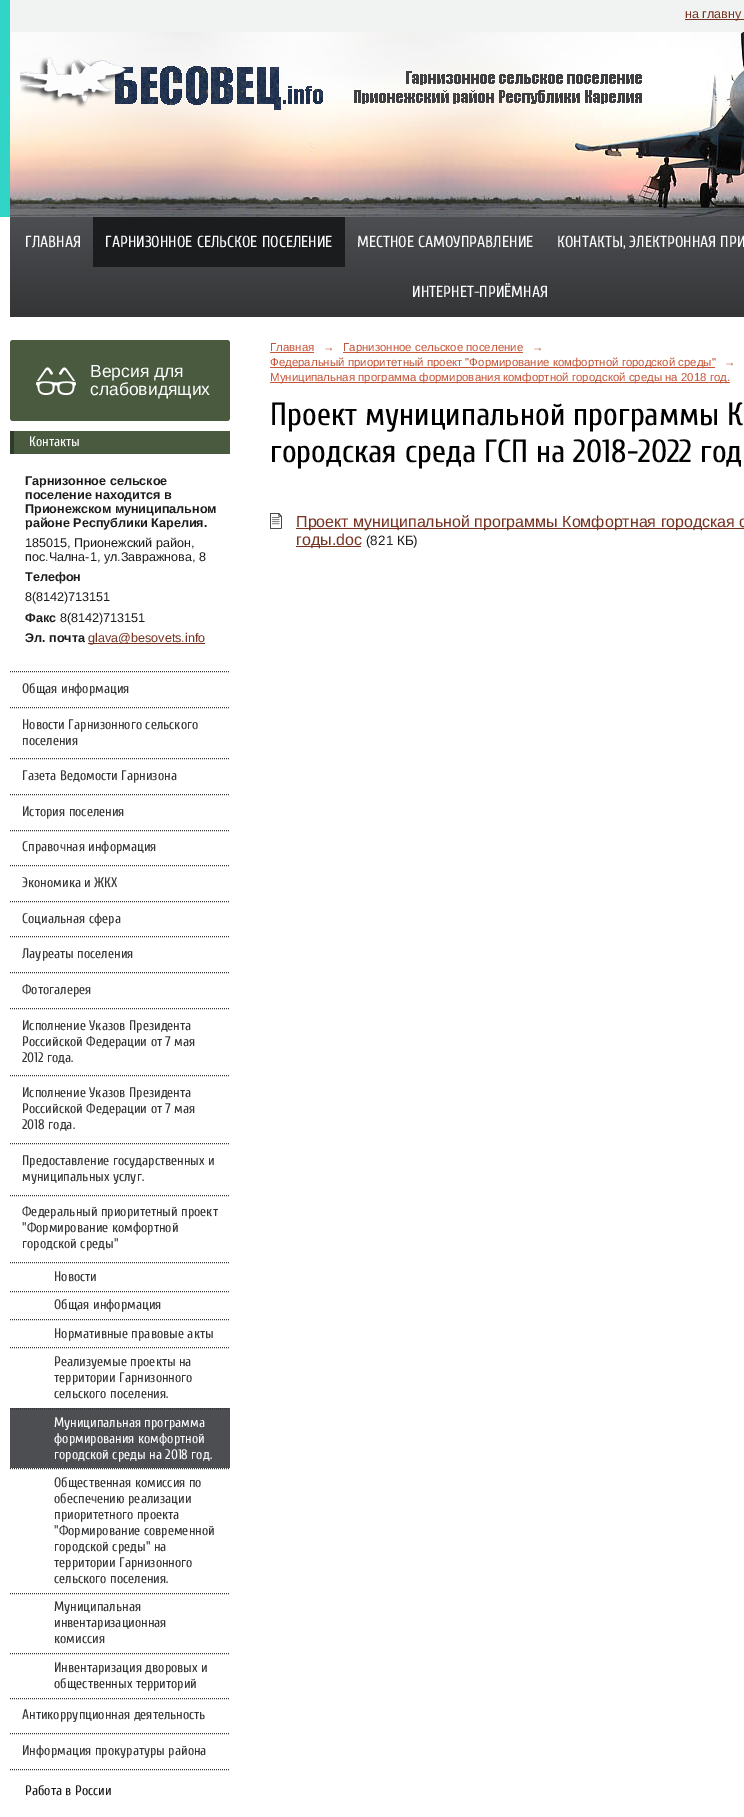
%!PS-Adobe-3.0
%%BoundingBox: 0 0 744 1817
%%LanguageLevel: 3
%%Pages: 1
%%EndComments
%%BeginProlog
/setink { dup -16 bitshift 255 div exch dup -8 bitshift 255 and 255 div exch 255 and 255 div setrgbcolor } def
/usefont { [ exch dup neg 0 0 3 -1 roll 0 0 ] selectfont } def
/rrect { 5 dict begin { /r /h /w /y /x } { exch def } forall
  x r add y moveto x w add y 2 copy h add r arct x w add y h add x 1 index r arct
  x y h add x y r arct x y 2 copy exch w add exch r arct closepath end } def
/drawimage { 5 dict begin { /h /w /y /x /name } { exch def } forall
  gsave x y translate w h scale
  w h 8 [w 0 0 h 0 0] name (r) file false 3 colorimage grestore end } def
%%EndProlog
%%BeginSetup
<< /PageSize [744 1817] >> setpagedevice
%%EndSetup
%%Page: 1 1
0 1817 translate 1 -1 scale
4 setmiterlimit
16#30D5C7 setink
0 0 744 1817 rectfill
16#F1F3F2 setink
10 0 734 32 rectfill
16#773322 setink
685 19 59 1 rectfill
/LiberationSans-Regular 12.6 usefont
685 18 moveto (на главну) show
(img1.raw) 10 32 734 185 drawimage
(img2.raw) 20 57 622 53 drawimage
16#FFFFFF setink
0 217 744 1600 rectfill
gsave 10 217 moveto 744 217 lineto 744 317 lineto 10 317 lineto closepath clip newpath
<< /ShadingType 2 /ColorSpace /DeviceRGB /Coords [480 217 480 317] /Extend [true true] /Function << /FunctionType 2 /Domain [0 1] /C0 [0.302 0.306 0.318] /C1 [0.204 0.208 0.216] /N 1 >> >> shfill grestore
/Cuprum-Regular 16 usefont
25 247 moveto (ГЛАВНАЯ) show
16#1B1C1D setink
93 217 252 50 rectfill
16#FFFFFF setink
[
    [(ГАРНИЗОННОЕ СЕЛЬСКОЕ ПОСЕЛЕНИЕ) 105 247]
    [(МЕСТНОЕ САМОУПРАВЛЕНИЕ) 357 247]
    [(КОНТАКТЫ, ЭЛЕКТРОННАЯ ПРИ) 557 247]
    [(ИНТЕРНЕТ-ПРИЁМНАЯ) 412 297]
] { aload pop moveto show } forall
16#495A3F setink
10 340 220 81 3 rrect fill
(img3.raw) 36 367 40 28 drawimage
/LiberationSans-Regular 17.5 usefont
16#FFFFFF setink
90 377 moveto (Версия для) show
90 395 moveto (слабовидящих) show
16#495A3F setink
14 431 216 23 rectfill
16#303C2A setink
10 431 4 23 rectfill
/Cuprum-Regular 13.75 usefont
16#FFFFFF setink
29 446 moveto (Контакты) show
/LiberationSans-Bold 12.6 usefont
16#1C1C1C setink
[
    [(Гарнизонное сельское) 25 485]
    [(поселение находится в) 25 499]
    [(Прионежском муниципальном) 25 513]
    [(районе Республики Карелия.) 25 527]
] { aload pop moveto show } forall
/LiberationSans-Regular 12.6 usefont
25 547 moveto (185015, Прионежский район,) show
25 561 moveto (пос.Чална-1, ул.Завражнова, 8) show
/LiberationSans-Bold 12.6 usefont
25 581 moveto (Телефон) show
/LiberationSans-Regular 12.6 usefont
25 601 moveto (8\(8142\)713151) show
/LiberationSans-Bold 12.6 usefont
25 622 moveto (Факс) show
/LiberationSans-Regular 12.6 usefont
60 622 moveto (8\(8142\)713151) show
/LiberationSans-Bold 12.6 usefont
25 642 moveto (Эл. почта) show
16#773322 setink
88 643 117 1 rectfill
/LiberationSans-Regular 12.6 usefont
88 642 moveto (glava@besovets.info) show
16#343537 setink
[1 1] 0 setdash
10 1769.5 moveto 230 1769.5 lineto stroke
10 671.5 moveto 230 671.5 lineto stroke
/Cuprum-Regular 13.75 usefont
22 693 moveto (Общая информация) show
10 707.5 moveto 230 707.5 lineto stroke
22 729 moveto (Новости Гарнизонного сельского) show
22 745 moveto (поселения) show
10 758.5 moveto 230 758.5 lineto stroke
22 780 moveto (Газета Ведомости Гарнизона) show
10 794.5 moveto 230 794.5 lineto stroke
22 816 moveto (История поселения) show
10 830.5 moveto 230 830.5 lineto stroke
22 851 moveto (Справочная информация) show
10 865.5 moveto 230 865.5 lineto stroke
22 887 moveto (Экономика и ЖКХ) show
10 901.5 moveto 230 901.5 lineto stroke
22 923 moveto (Социальная сфера) show
10 936.5 moveto 230 936.5 lineto stroke
22 958 moveto (Лауреаты поселения) show
10 972.5 moveto 230 972.5 lineto stroke
22 994 moveto (Фотогалерея) show
10 1008.5 moveto 230 1008.5 lineto stroke
[
    [(Исполнение Указов Президента) 22 1030]
    [(Российской Федерации от 7 мая) 22 1046]
    [(2012 года.) 22 1062]
] { aload pop moveto show } forall
10 1075.5 moveto 230 1075.5 lineto stroke
[
    [(Исполнение Указов Президента) 22 1097]
    [(Российской Федерации от 7 мая) 22 1113]
    [(2018 года.) 22 1129]
] { aload pop moveto show } forall
10 1143.5 moveto 230 1143.5 lineto stroke
22 1165 moveto (Предоставление государственных и) show
22 1181 moveto (муниципальных услуг.) show
10 1195.5 moveto 230 1195.5 lineto stroke
[
    [(Федеральный приоритетный проект) 22 1216]
    [("Формирование комфортной) 22 1232]
    [(городской среды") 22 1248]
] { aload pop moveto show } forall
10 1262.5 moveto 230 1262.5 lineto stroke
54 1281 moveto (Новости) show
10 1291.5 moveto 230 1291.5 lineto stroke
54 1309 moveto (Общая информация) show
10 1319.5 moveto 230 1319.5 lineto stroke
54 1338 moveto (Нормативные правовые акты) show
10 1347.5 moveto 230 1347.5 lineto stroke
[
    [(Реализуемые проекты на) 54 1366]
    [(территории Гарнизонного) 54 1382]
    [(сельского поселения.) 54 1398]
] { aload pop moveto show } forall
16#4D4E51 setink
10 1408 220 60 rectfill
16#343537 setink
10 1408.5 moveto 230 1408.5 lineto stroke
16#FFFFFF setink
[
    [(Муниципальная программа) 54 1427]
    [(формирования комфортной) 54 1443]
    [(городской среды на 2018 год.) 54 1459]
] { aload pop moveto show } forall
16#343537 setink
10 1468.5 moveto 230 1468.5 lineto stroke
[
    [(Общественная комиссия по) 54 1487]
    [(обеспечению реализации) 54 1503]
    [(приоритетного проекта) 54 1519]
    [("Формирование современной) 54 1535]
    [(городской среды" на) 54 1551]
    [(территории Гарнизонного) 54 1567]
    [(сельского поселения.) 54 1583]
] { aload pop moveto show } forall
10 1593.5 moveto 230 1593.5 lineto stroke
[
    [(Муниципальная) 54 1611]
    [(инвентаризационная) 54 1627]
    [(комиссия) 54 1643]
] { aload pop moveto show } forall
10 1653.5 moveto 230 1653.5 lineto stroke
54 1672 moveto (Инвентаризация дворовых и) show
54 1688 moveto (общественных территорий) show
10 1698.5 moveto 230 1698.5 lineto stroke
22 1719 moveto (Антикоррупционная деятельность) show
10 1733.5 moveto 230 1733.5 lineto stroke
22 1755 moveto (Информация прокуратуры района) show
16#1C1C1C setink
25 1795 moveto (Работа в России) show
/LiberationSans-Regular 11.45 usefont
16#C65539 setink
270 351 moveto (Главная) show
270 352 44 1 rectfill
/LiberationSans-Italic 11.45 usefont
323 351 moveto (→) show
343 352 180 1 rectfill
/LiberationSans-Regular 11.45 usefont
343 351 moveto (Гарнизонное сельское поселение) show
/LiberationSans-Italic 11.45 usefont
532 351 moveto (→) show
270 367 445 1 rectfill
/LiberationSans-Regular 11.45 usefont
270 366 moveto (Федеральный приоритетный проект "Формирование комфортной городской среды") show
/LiberationSans-Italic 11.45 usefont
724 366 moveto (→) show
270 382 460 1 rectfill
/LiberationSans-Regular 11.45 usefont
270 381 moveto (Муниципальная программа формирования комфортной городской среды на 2018 год.) show
/Cuprum-Regular 32 usefont
16#000000 setink
270 425 moveto (Проект муниципальной программы К) show
270 462 moveto (городская среда ГСП на 2018-2022 год) show
(img4.raw) 270 513 12 16 drawimage
16#773322 setink
296 528 448 1 rectfill
/LiberationSans-Regular 16 usefont
296 527 moveto (Проект муниципальной программы Комфортная городская с) show
296 546 65 1 rectfill
296 545 moveto (годы.doc) show
/LiberationSans-Regular 13.5 usefont
16#1C1C1C setink
366 545 moveto (\(821 КБ\)) show
showpage
%%EOF
